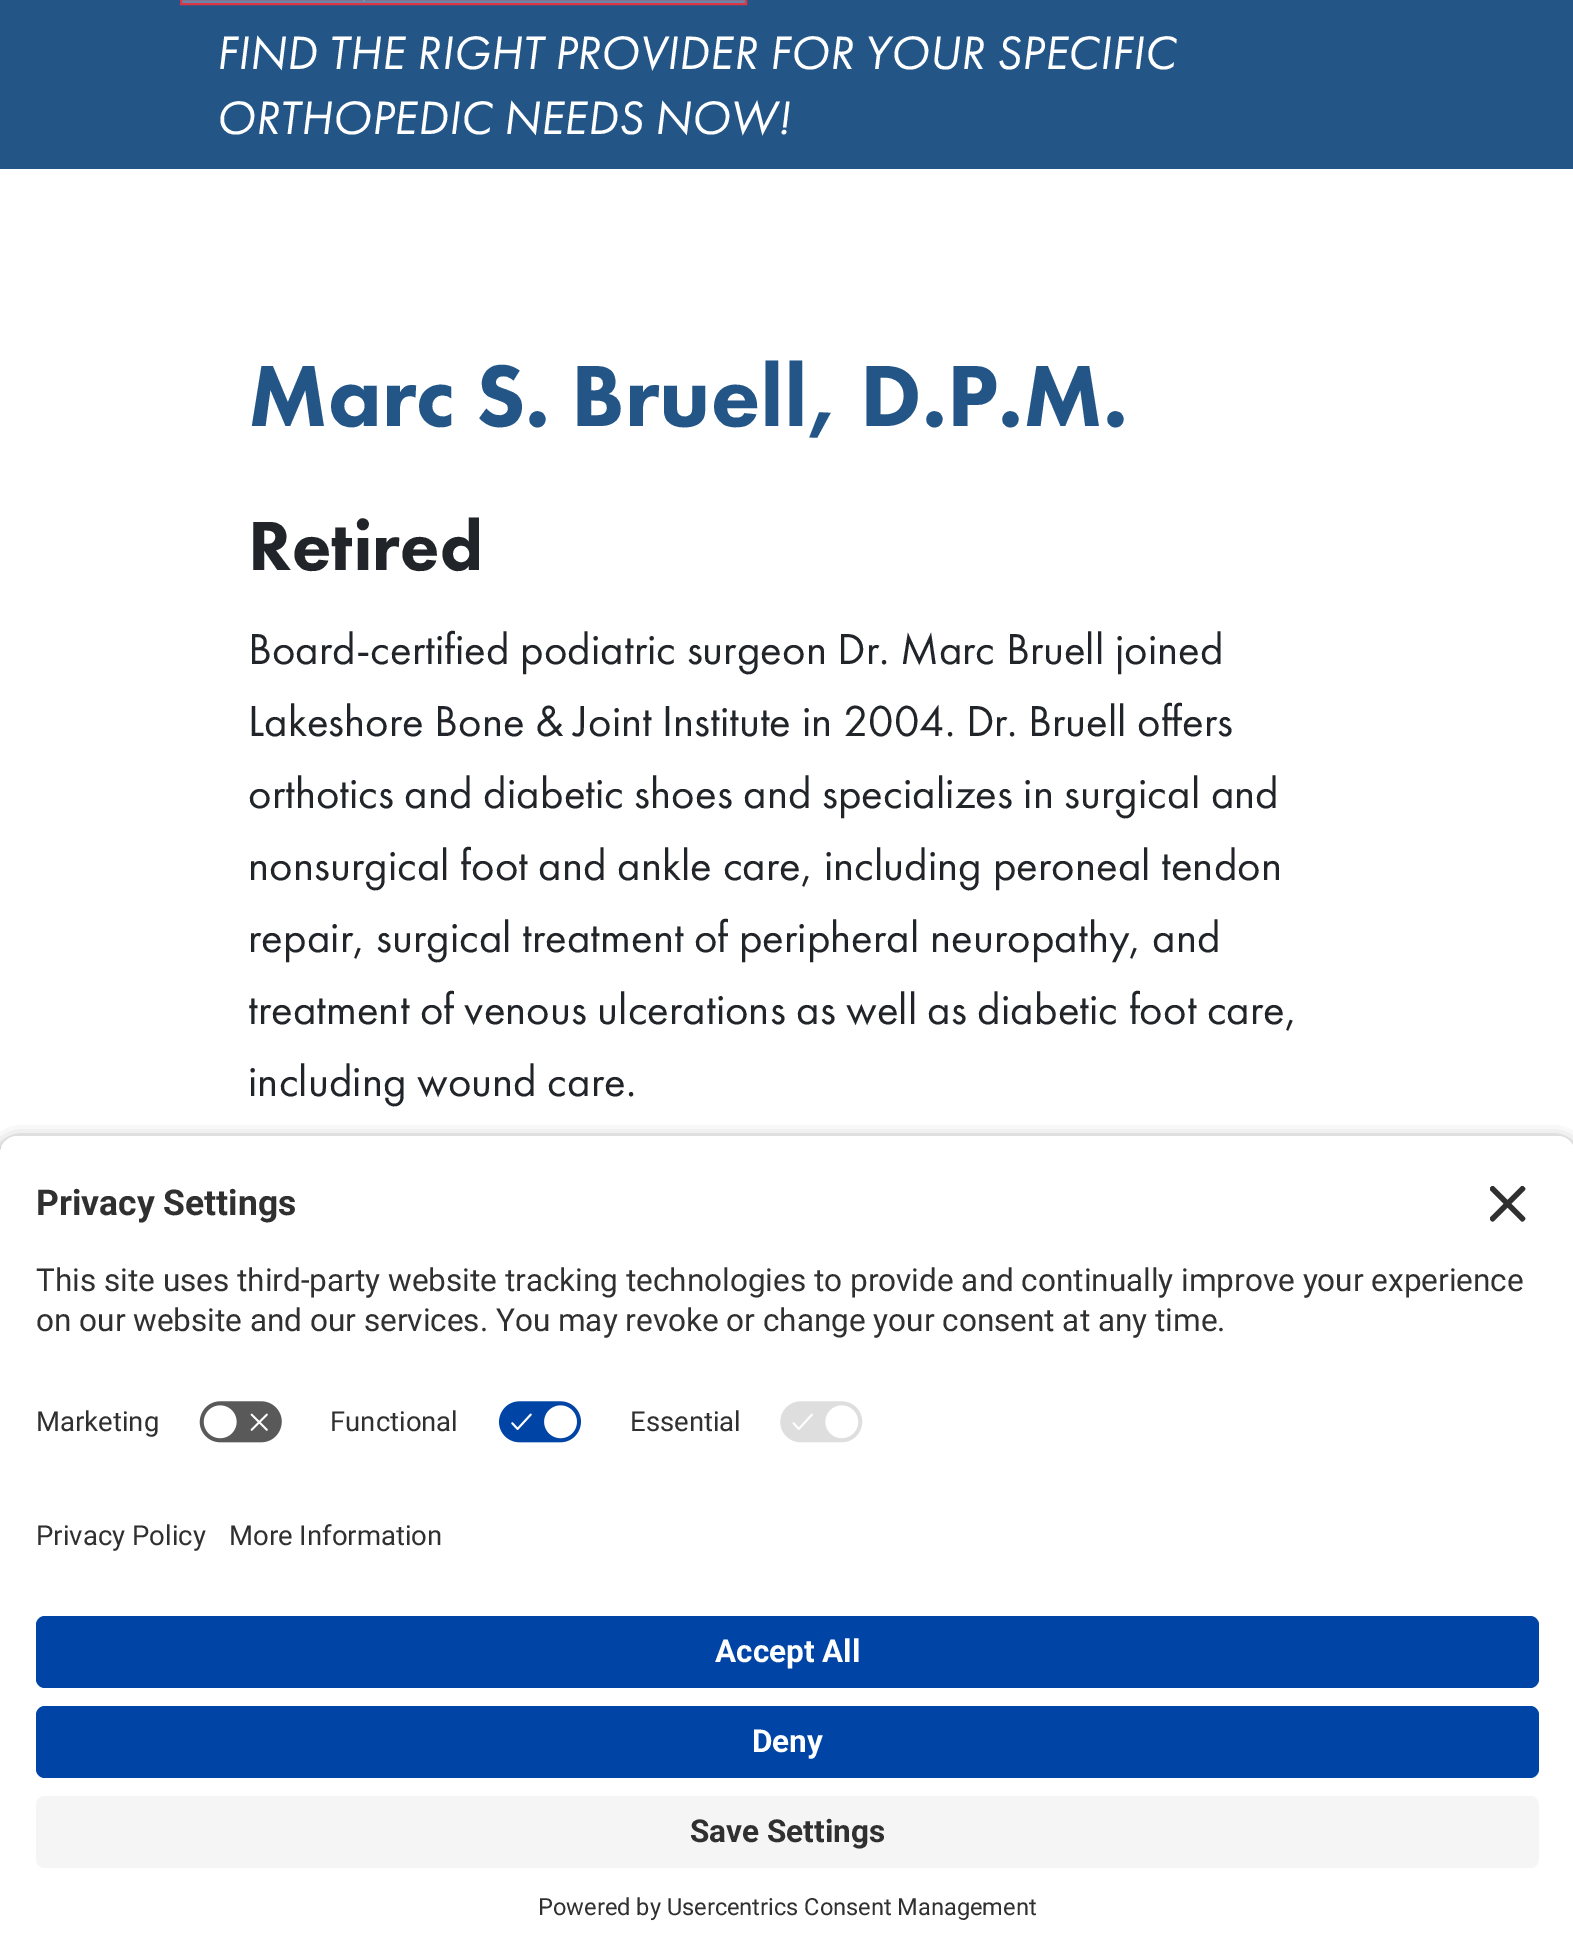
%!PS-Adobe-3.0
%%BoundingBox: 0 0 1573 1957
%%LanguageLevel: 3
%%Pages: 1
%%EndComments
%%BeginProlog
/setink { dup -16 bitshift 255 div exch dup -8 bitshift 255 and 255 div exch 255 and 255 div setrgbcolor } def
/usefont { [ exch dup neg 0 0 3 -1 roll 0 0 ] selectfont } def
/setalpha { dup .setfillconstantalpha .setstrokeconstantalpha } def
/rrect { 5 dict begin { /r /h /w /y /x } { exch def } forall
  x r add y moveto x w add y 2 copy h add r arct x w add y h add x 1 index r arct
  x y h add x y r arct x y 2 copy exch w add exch r arct closepath end } def
/softshadow { 12 dict begin { /a /b /q /h /w /y /x } { exch def } forall gsave /was 0 def
  9 -2 -9 { dup b mul 4 div /e exch def 1 sub .425 mul 2.718 exch exp 1 add a .99 .min exch div /now exch def
    1 1 now sub 1 was sub div sub setalpha /was now def
    w h .min e 2 mul add 0 gt { x e sub y e sub w e 2 mul add h e 2 mul add
      q e add b .6 mul add w h .min 2 div e add .min 0 .max rrect fill } if } for grestore end } def
/drawimage { 5 dict begin { /h /w /y /x /name } { exch def } forall
  gsave x y translate w h scale
  w h 8 [w 0 0 h 0 0] name (r) file false 3 colorimage grestore end } def
%%EndProlog
%%BeginSetup
<< /PageSize [1573 1957] /PageUsesTransparency true >> setpagedevice
%%EndSetup
%%Page: 1 1
0 .pushpdf14devicefilter
0 1957 translate 1 -1 scale
4 setmiterlimit
16#FFFFFF setink
0 0 1573 1957 rectfill
16#235687 setink
0 0 1573 169 rectfill
16#6986A8 setink
181 -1 moveto 746 -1 lineto 746 4 lineto 181 4 lineto closepath gsave fill grestore
16#DC3545 setink
2 setlinewidth
stroke
(img1.raw) 363 0 2 2 drawimage
/FuturaPT-Italic 48.6 usefont
16#FFFFFF setink
216 69 moveto (FIND THE RIGHT PROVIDER FOR YOUR SPECIFIC) show
216 134 moveto (ORTHOPEDIC NEEDS NOW!) show
/FuturaPT-Black 90 usefont
16#235687 setink
248 426 moveto (Marc S. Bruell, D.P.M.) show
/FuturaPT-Black 72 usefont
16#212529 setink
248 570 moveto (Retired) show
/FuturaPT-Regular 45 usefont
[
    [(Board-certified podiatric surgeon Dr. Marc Bruell joined) 248 664]
    [(Lakeshore Bone & Joint Institute in 2004. Dr. Bruell offers) 248 736]
    [(orthotics and diabetic shoes and specializes in surgical and) 248 808]
    [(nonsurgical foot and ankle care, including peroneal tendon) 248 880]
    [(repair, surgical treatment of peripheral neuropathy, and) 248 952]
    [(treatment of venous ulcerations as well as diabetic foot care,) 248 1024]
    [(including wound care.) 248 1096]
] { aload pop moveto show } forall
16#000000 setink
0 1143 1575 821 18 8 0.8 softshadow
16#FFFFFF setink
18 1136 moveto 1557 1136 lineto 1567 1136 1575 1144 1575 1154 curveto 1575 1485 lineto 0 1485 lineto 0 1154 lineto 0 1144 8 1136 18 1136 curveto closepath fill
18 1136 moveto 1557 1136 lineto 1567 1136 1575 1144 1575 1154 curveto 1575 1386 lineto 0 1386 lineto 0 1154 lineto 0 1144 8 1136 18 1136 curveto closepath fill
/Roboto-Bold 35.5 usefont
16#303030 setink
36 1215 moveto (Privacy Settings) show
(img2.raw) 1490 1186 36 36 drawimage
/Roboto-Regular 31.5 usefont
36 1291 moveto (This site uses third-party website tracking technologies to provide and continually improve your experience) show
36 1331 moveto (on our website and our services. You may revoke or change your consent at any time.) show
/Roboto-Regular 27.5 usefont
36 1431 moveto (Marketing) show
(img3.raw) 199 1401 83 42 drawimage
330 1431 moveto (Functional) show
(img4.raw) 498 1401 84 42 drawimage
630 1431 moveto (Essential) show
(img5.raw) 780 1401 83 42 drawimage
16#FFFFFF setink
0 1485 1573 472 rectfill
16#303030 setink
36 1545 moveto (Privacy Policy) show
229 1545 moveto (More Information) show
16#0045A5 setink
36 1616 1503 72 9 rrect fill
/Roboto-Bold 31.5 usefont
16#FFFFFF setink
715 1662 moveto (Accept All) show
16#0045A5 setink
36 1706 1503 72 9 rrect fill
16#FFFFFF setink
752 1752 moveto (Deny) show
16#F5F5F5 setink
36 1796 1503 72 9 rrect fill
16#303030 setink
690 1842 moveto (Save Settings) show
/Roboto-Regular 23.6 usefont
538 1915 moveto (Powered by Usercentrics Consent Management) show
.poppdf14devicefilter showpage
%%EOF
